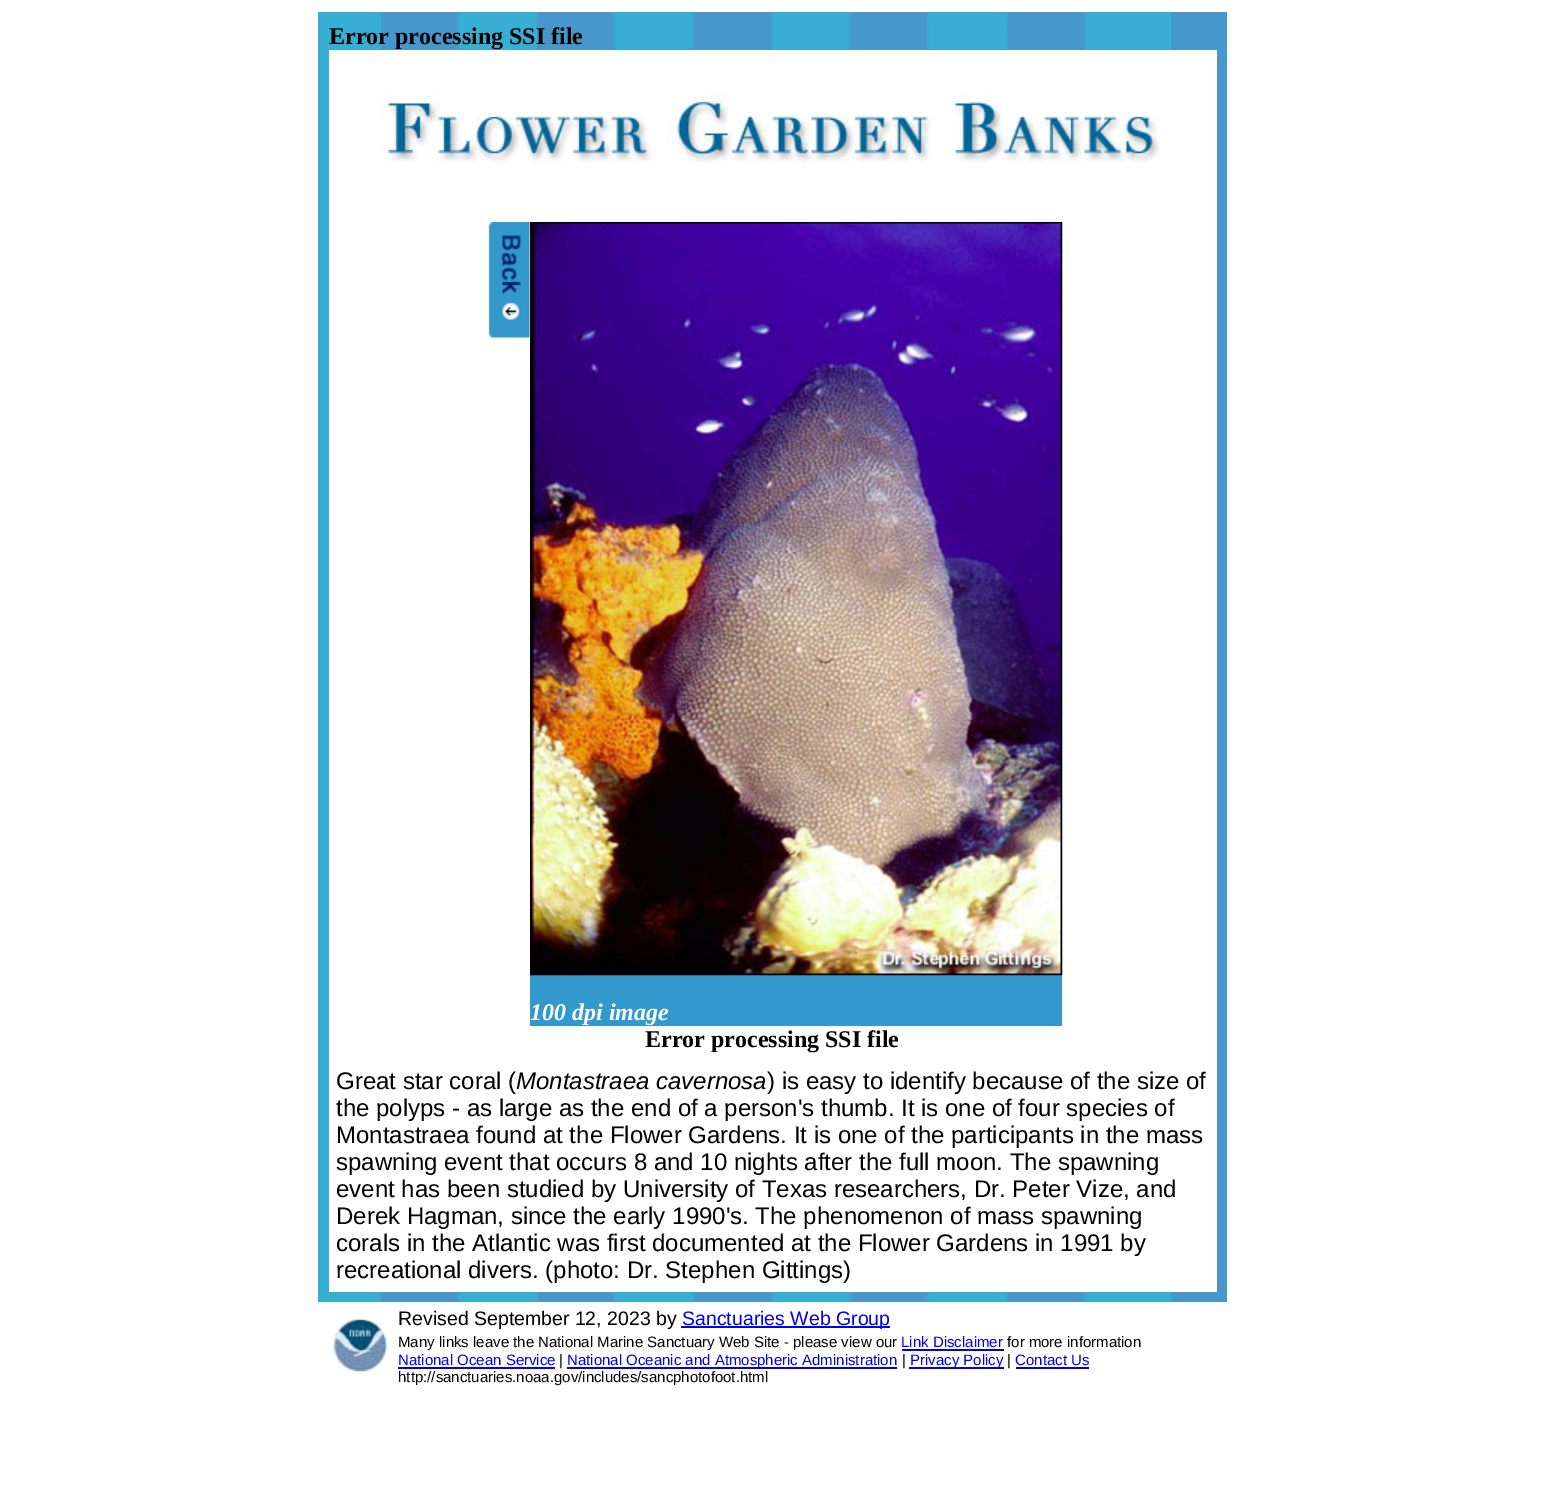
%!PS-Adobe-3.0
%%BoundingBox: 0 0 1544 1485
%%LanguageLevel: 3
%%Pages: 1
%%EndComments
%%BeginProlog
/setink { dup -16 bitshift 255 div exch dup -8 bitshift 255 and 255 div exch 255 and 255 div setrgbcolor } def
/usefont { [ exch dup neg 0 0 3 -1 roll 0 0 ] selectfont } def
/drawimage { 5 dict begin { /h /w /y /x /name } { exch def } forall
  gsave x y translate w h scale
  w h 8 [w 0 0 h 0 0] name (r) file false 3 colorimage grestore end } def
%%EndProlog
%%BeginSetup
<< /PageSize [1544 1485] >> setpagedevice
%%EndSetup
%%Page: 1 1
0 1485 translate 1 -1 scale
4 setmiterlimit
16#FFFFFF setink
0 0 1544 1485 rectfill
(img1.raw) 318 12 909 1290 drawimage
/LiberationSerif-Bold 24 usefont
16#000000 setink
329 44 moveto (Error processing SSI file) show
16#FFFFFF setink
329 50 888 1242 rectfill
(img2.raw) 379 93 781 72 drawimage
(img3.raw) 488 222 42 116 drawimage
16#3399CC setink
530 975 532 51 rectfill
16#000000 setink
2 setlinewidth
531 223 530 751 rectstroke
(img4.raw) 531 223 530 751 drawimage
/LiberationSerif-BoldItalic 24 usefont
16#FFFFFF setink
530 1020 moveto (100 dpi image) show
/LiberationSerif-Bold 24 usefont
16#000000 setink
645 1047 moveto (Error processing SSI file) show
/LiberationSans-Regular 24 usefont
336 1089 moveto (Great star coral \() show
/LiberationSans-Italic 24 usefont
516 1089 moveto (Montastraea cavernosa) show
/LiberationSans-Regular 24 usefont
[
    [(\) is easy to identify because of the size of) 767 1089]
    [(the polyps - as large as the end of a person's thumb. It is one of four species of) 336 1116]
    [(Montastraea found at the Flower Gardens. It is one of the participants in the mass) 336 1143]
    [(spawning event that occurs 8 and 10 nights after the full moon. The spawning) 336 1170]
    [(event has been studied by University of Texas researchers, Dr. Peter Vize, and) 336 1197]
    [(Derek Hagman, since the early 1990's. The phenomenon of mass spawning) 336 1224]
    [(corals in the Atlantic was first documented at the Flower Gardens in 1991 by) 336 1251]
    [(recreational divers. \(photo: Dr. Stephen Gittings\)) 336 1278]
] { aload pop moveto show } forall
(img5.raw) 333 1318 54 55 drawimage
/LiberationSans-Regular 19.5 usefont
398 1325 moveto (Revised September 12, 2023 by) show
16#0000EE setink
681 1326 209 2 rectfill
682 1325 moveto (Sanctuaries Web Group) show
/LiberationSans-Regular 15 usefont
16#000000 setink
398 1347 moveto (Many links leave the National Marine Sanctuary Web Site - please view our) show
16#0000EE setink
901 1347 moveto (Link Disclaimer) show
902 1349 102 2 rectfill
16#000000 setink
1007 1347 moveto (for more information) show
16#0000EE setink
398 1365 moveto (National Ocean Service) show
398 1367 157 2 rectfill
16#000000 setink
559 1365 moveto (|) show
16#0000EE setink
567 1367 330 2 rectfill
567 1365 moveto (National Oceanic and Atmospheric Administration) show
16#000000 setink
902 1365 moveto (|) show
16#0000EE setink
909 1367 95 2 rectfill
910 1365 moveto (Privacy Policy) show
16#000000 setink
1007 1365 moveto (|) show
16#0000EE setink
1015 1365 moveto (Contact Us) show
1016 1367 73 2 rectfill
16#000000 setink
398 1382 moveto (http://sanctuaries.noaa.gov/includes/sancphotofoot.html) show
showpage
%%EOF
